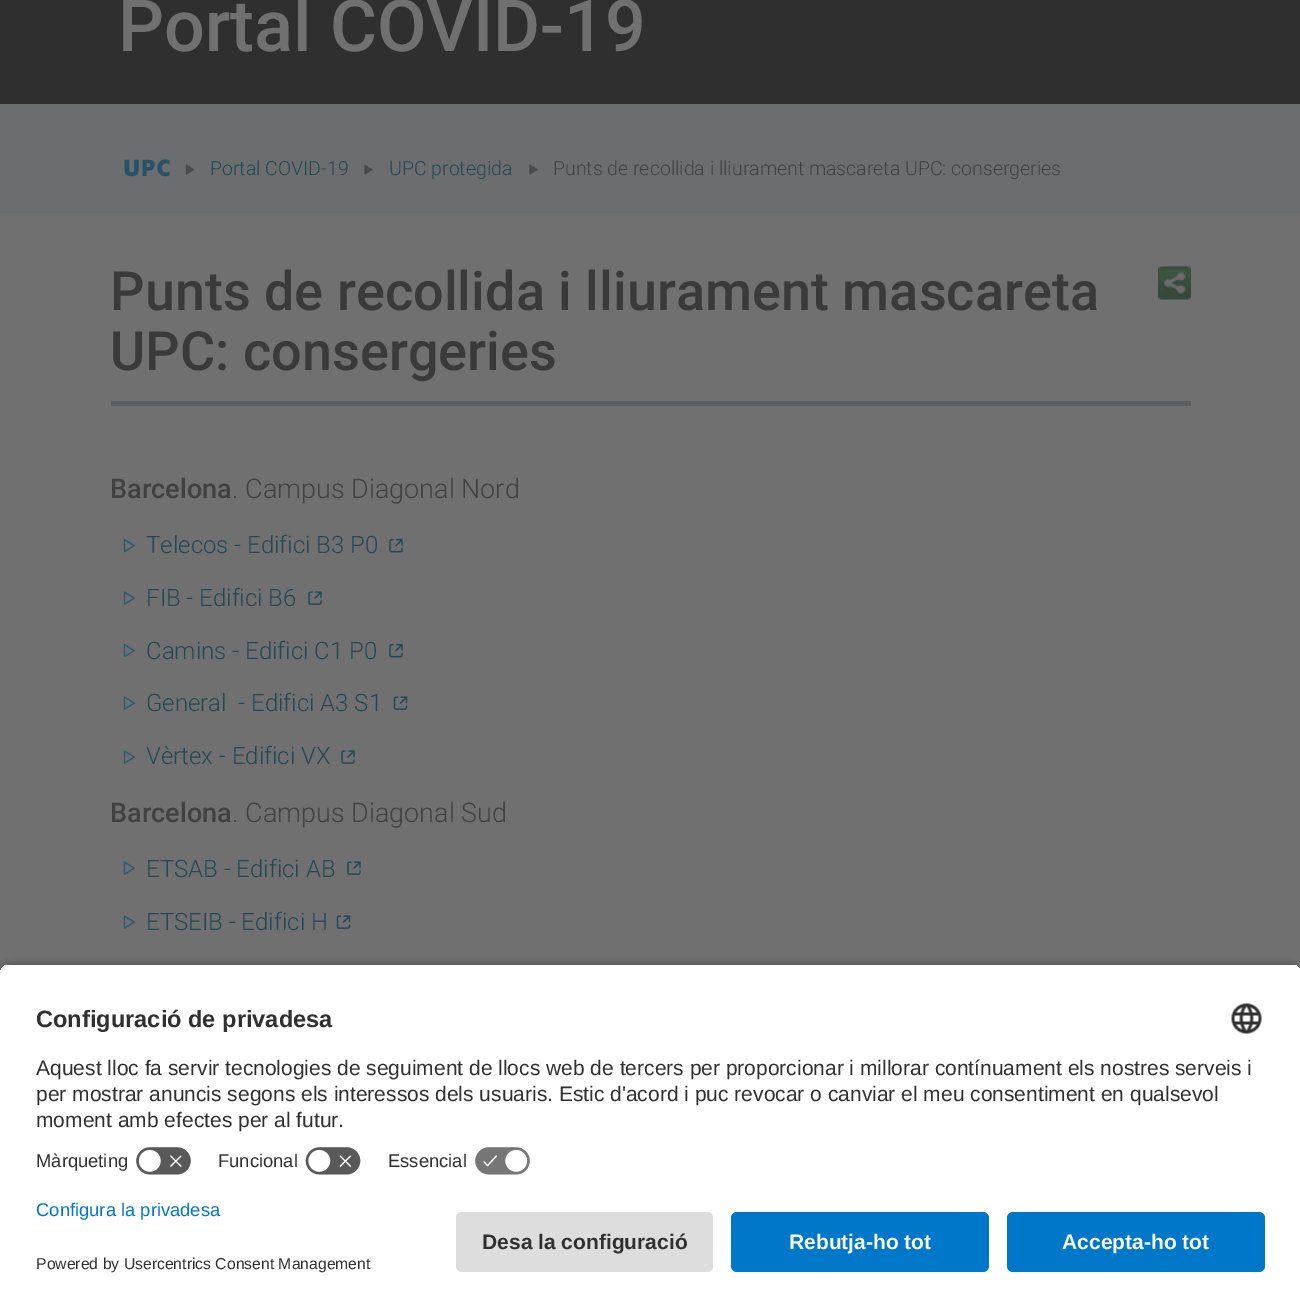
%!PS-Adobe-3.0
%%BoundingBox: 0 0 1300 1308
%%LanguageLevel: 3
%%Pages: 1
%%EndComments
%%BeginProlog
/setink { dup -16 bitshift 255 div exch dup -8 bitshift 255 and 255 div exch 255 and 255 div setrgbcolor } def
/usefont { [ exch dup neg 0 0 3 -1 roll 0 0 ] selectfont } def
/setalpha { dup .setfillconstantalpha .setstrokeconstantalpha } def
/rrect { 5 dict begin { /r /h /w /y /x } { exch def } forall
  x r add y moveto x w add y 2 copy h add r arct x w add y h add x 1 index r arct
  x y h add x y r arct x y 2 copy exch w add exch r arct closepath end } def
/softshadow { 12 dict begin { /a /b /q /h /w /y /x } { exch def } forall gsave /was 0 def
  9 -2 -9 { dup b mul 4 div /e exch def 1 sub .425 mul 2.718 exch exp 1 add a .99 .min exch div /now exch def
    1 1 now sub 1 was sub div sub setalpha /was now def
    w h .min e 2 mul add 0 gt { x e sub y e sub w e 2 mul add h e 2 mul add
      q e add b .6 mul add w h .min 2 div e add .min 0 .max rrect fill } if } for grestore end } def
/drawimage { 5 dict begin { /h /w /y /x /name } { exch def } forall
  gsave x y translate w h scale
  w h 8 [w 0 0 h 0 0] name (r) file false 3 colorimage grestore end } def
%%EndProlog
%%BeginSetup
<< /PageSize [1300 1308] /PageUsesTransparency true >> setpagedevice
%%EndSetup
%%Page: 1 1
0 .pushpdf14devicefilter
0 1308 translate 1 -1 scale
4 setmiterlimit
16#707070 setink
0 0 1300 1308 rectfill
gsave 0 0 moveto 1300 0 lineto 1300 104 lineto 0 104 lineto closepath clip newpath
<< /ShadingType 2 /ColorSpace /DeviceRGB /Coords [652 -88 648 115] /Extend [true true] /Function << /FunctionType 3 /Domain [0 1] /Functions [<< /FunctionType 2 /Domain [0 1] /C0 [0.216 0.216 0.216] /C1 [0.184 0.184 0.184] /N 1 >> << /FunctionType 2 /Domain [0 1] /C0 [0.184 0.184 0.184] /C1 [0.184 0.184 0.184] /N 1 >>] /Bounds [0.41] /Encode [0 1 0 1] >> >> shfill grestore
/Roboto-Medium 72 usefont
118 51 moveto (Portal COVID-19) show
16#6C6D6E setink
0 104 1300 109 rectfill
(img1.raw) 124 159 46 18 drawimage
(img2.raw) 185 164 10 11 drawimage
/Roboto-Light 19.5 usefont
16#244753 setink
210 175 moveto (Portal COVID-19) show
(img3.raw) 364 164 9 11 drawimage
389 175 moveto (UPC protegida) show
(img3.raw) 529 164 9 11 drawimage
16#414141 setink
553 175 moveto (Punts de recollida i lliurament mascareta UPC: consergeries) show
16#5B5F60 setink
111 401 1080 5 rectfill
/Roboto-Medium 54 usefont
16#3A3A3A setink
110 310 moveto (Punts de recollida i lliurament mascareta) show
110 370 moveto (UPC: consergeries) show
(img4.raw) 1158 266 33 34 drawimage
/Roboto-Medium 27 usefont
16#414141 setink
110 498 moveto (Barcelona) show
/Roboto-Light 27 usefont
232 498 moveto (. Campus Diagonal Nord) show
(img5.raw) 123 538 12 15 drawimage
/Roboto-Light 24 usefont
16#244753 setink
146 553 moveto (Telecos - Edifici B3 P0) show
(img6.raw) 389 538 14 15 drawimage
(img7.raw) 123 591 12 14 drawimage
146 606 moveto (FIB - Edifici B6) show
(img8.raw) 308 591 14 14 drawimage
(img5.raw) 123 643 12 15 drawimage
146 659 moveto (Camins - Edifici C1 P0) show
(img6.raw) 389 643 14 15 drawimage
(img7.raw) 123 696 12 14 drawimage
146 711 moveto (General  - Edifici A3 S1) show
(img9.raw) 393 696 15 14 drawimage
(img7.raw) 123 750 12 14 drawimage
146 764 moveto (Vèrtex - Edifici VX) show
(img8.raw) 341 750 14 14 drawimage
/Roboto-Medium 27 usefont
16#414141 setink
110 822 moveto (Barcelona) show
/Roboto-Light 27 usefont
232 822 moveto (. Campus Diagonal Sud) show
(img7.raw) 123 861 12 14 drawimage
/Roboto-Light 24 usefont
16#244753 setink
146 877 moveto (ETSAB - Edifici AB) show
(img8.raw) 347 861 14 14 drawimage
(img7.raw) 123 915 12 14 drawimage
146 930 moveto (ETSEIB - Edifici H) show
(img9.raw) 336 915 15 14 drawimage
16#000000 setink
0 968 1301 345 12 5 0.8 softshadow
gsave
12 963 moveto 1289 963 lineto 1295.5 963 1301 968.5 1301 975 curveto 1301 1200 lineto 0 1200 lineto 0 975 lineto 0 968.5 5.5 963 12 963 curveto closepath clip newpath
16#FFFFFF setink
0 965 1300 235 rectfill
0 965 1300 175 rectfill
grestore
/LiberationSans-Bold 23.6 usefont
16#303030 setink
36 1027 moveto (Configuració de privadesa) show
(img10.raw) 1231 1003 31 31 drawimage
/LiberationSans-Regular 21 usefont
[
    [(Aquest lloc fa servir tecnologies de seguiment de llocs web de tercers per proporcionar i millorar contínuament els nostres serveis i) 36 1075]
    [(per mostrar anuncis segons els interessos dels usuaris. Estic d'acord i puc revocar o canviar el meu consentiment en qualsevol) 36 1101]
    [(moment amb efectes per al futur.) 36 1127]
] { aload pop moveto show } forall
/LiberationSans-Regular 18.4 usefont
36 1167 moveto (Màrqueting) show
(img11.raw) 136 1147 55 28 drawimage
218 1167 moveto (Funcional) show
(img12.raw) 305 1147 56 28 drawimage
388 1167 moveto (Essencial) show
(img13.raw) 475 1147 55 28 drawimage
16#FFFFFF setink
0 1200 1300 108 rectfill
16#0077C8 setink
36 1216 moveto (Configura la privadesa) show
/LiberationSans-Regular 15.75 usefont
16#303030 setink
36 1269 moveto (Powered by Usercentrics Consent Management) show
16#DDDDDD setink
456 1212 257 60 6 rrect fill
/LiberationSans-Bold 21 usefont
16#303030 setink
482 1249 moveto (Desa la configuració) show
16#0077C8 setink
731 1212 258 60 6 rrect fill
16#FAFAFA setink
789 1249 moveto (Rebutja-ho tot) show
16#0077C8 setink
1007 1212 258 60 6 rrect fill
16#FAFAFA setink
1062 1249 moveto (Accepta-ho tot) show
.poppdf14devicefilter showpage
%%EOF
